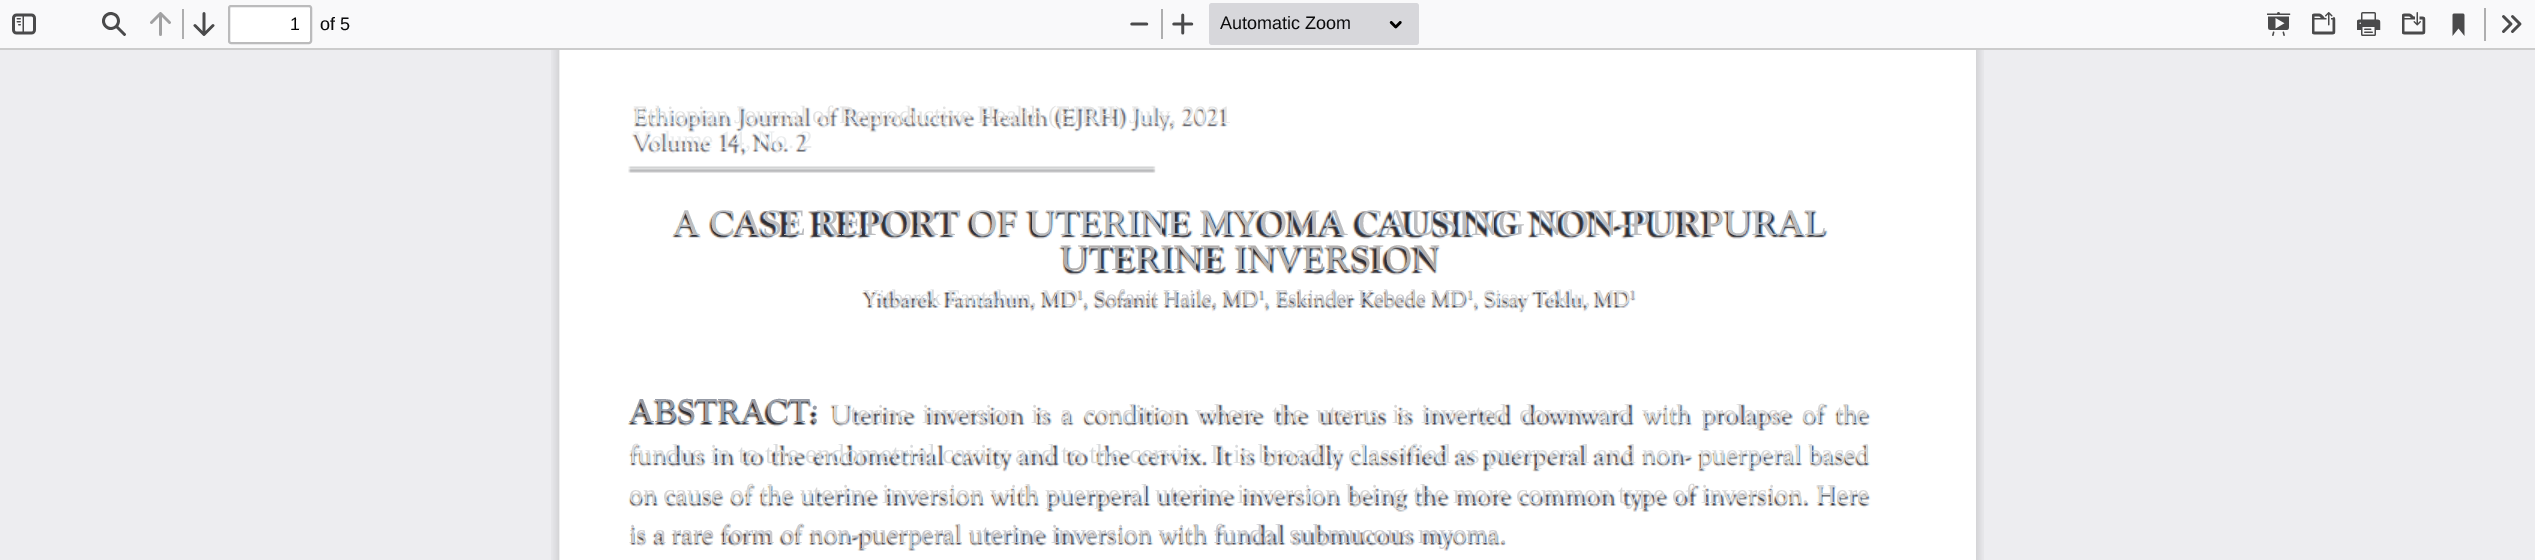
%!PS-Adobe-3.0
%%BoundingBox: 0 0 2535 560
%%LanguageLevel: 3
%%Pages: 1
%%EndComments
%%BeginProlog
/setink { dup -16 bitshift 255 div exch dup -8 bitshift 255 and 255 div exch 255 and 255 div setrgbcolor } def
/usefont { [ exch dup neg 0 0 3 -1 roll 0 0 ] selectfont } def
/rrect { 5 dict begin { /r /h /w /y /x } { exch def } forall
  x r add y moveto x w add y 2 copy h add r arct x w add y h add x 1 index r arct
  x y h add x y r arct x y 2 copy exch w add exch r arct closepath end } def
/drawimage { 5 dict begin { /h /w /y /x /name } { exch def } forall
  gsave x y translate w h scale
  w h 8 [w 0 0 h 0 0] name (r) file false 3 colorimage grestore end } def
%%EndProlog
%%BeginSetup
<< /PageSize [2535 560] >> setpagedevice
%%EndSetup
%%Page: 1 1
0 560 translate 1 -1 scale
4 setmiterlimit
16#EDEDF0 setink
0 0 2535 560 rectfill
16#CCCCCC setink
0 48 2535 2 rectfill
16#F9F9FA setink
0 0 2535 48 rectfill
(img1.raw) 12 13 24 22 drawimage
(img2.raw) 102 12 24 24 drawimage
(img3.raw) 150 12 21 24 drawimage
16#AEAEAF setink
182 9 2 30 rectfill
(img4.raw) 193 12 22 24 drawimage
16#FFFFFF setink
229 6 82 37 2 rrect gsave fill grestore
16#BBBBBC setink
2 setlinewidth
stroke
/LiberationSans-Regular 18 usefont
16#060606 setink
290 30 moveto (1) show
16#0C0C0D setink
320 30 moveto (of 5) show
(img5.raw) 1130 22 19 4 drawimage
16#AEAEAF setink
1161 9 2 30 rectfill
(img6.raw) 1172 13 22 22 drawimage
16#D7D7DB setink
1209 3 210 42 3 rrect fill
16#0C0C0D setink
1220 29 moveto (Automatic Zoom) show
(img7.raw) 1389 21 13 8 drawimage
(img8.raw) 2267 12 24 24 drawimage
(img9.raw) 2312 12 24 23 drawimage
(img10.raw) 2357 12 24 24 drawimage
(img11.raw) 2402 12 24 23 drawimage
(img12.raw) 2452 13 13 23 drawimage
16#AEAEAF setink
2484 8 2 33 rectfill
(img13.raw) 2502 15 20 18 drawimage
(img14.raw) 551 50 1433 510 drawimage
(img15.raw) 559 50 1417 510 drawimage
/LiberationSerif-Regular 25 usefont
16#E3E3E3 setink
633 123 moveto -0.22 0 (Ethiopian Journal of Reproductive Health \(EJRH\) July, 2021) ashow
16#EAECED setink
633 148 moveto (Volume 14, No. 2) show
/LiberationSerif-Regular 37.5 usefont
16#BCBDC0 setink
673 235 moveto 0.18 0 (A CASE REPORT OF UTERINE MYOMA CAUSING NON-PURPURAL) ashow
16#B1AEAD setink
1060 270 moveto 0.5 0 (UTERINE INVERSION) ashow
/LiberationSerif-Regular 22.5 usefont
16#D9DBDD setink
863 305 moveto (Yitbarek Fantahun, MD) show
/LiberationSerif-Regular 13 usefont
16#C4C6C7 setink
1077 299 moveto (1) show
/LiberationSerif-Regular 22.5 usefont
16#CACACF setink
1083 305 moveto -0.14 0 (, Sofanit Haile, MD) ashow
1264 305 moveto -0.25 0 (, Eskinder Kebede MD) ashow
/LiberationSerif-Regular 13 usefont
16#C4C6C7 setink
1467 299 moveto (1) show
/LiberationSerif-Regular 22.5 usefont
16#D9DBDD setink
1473 305 moveto -0.5 0 (, Sisay Teklu, MD) ashow
/LiberationSerif-Regular 13 usefont
16#C5BBC3 setink
1629 299 moveto (1) show
/LiberationSerif-Regular 35 usefont
16#979CA7 setink
629 422 moveto -0.25 0 (ABSTRACT:) ashow
/LiberationSerif-Regular 27.5 usefont
16#D7D6D6 setink
831 423 moveto -0.63 0 (Uterine  inversion  is  a  condition  where  the  uterus  is  inverted  downward  with  prolapse  of  the) ashow
16#D9DBDD setink
629 463 moveto -0.14 0 (fundus in to the endometrial cavity and to the cervix. It is broadly classified as puerperal and non- puerperal based) ashow
16#D7D6D6 setink
629 503 moveto -0.11 0 (on cause of the uterine inversion with puerperal uterine inversion being the more common type of inversion. Here) ashow
16#CACACF setink
629 543 moveto -0.17 0 (is a rare form of non-puerperal uterine inversion with fundal submucous myoma.) ashow
showpage
%%EOF
